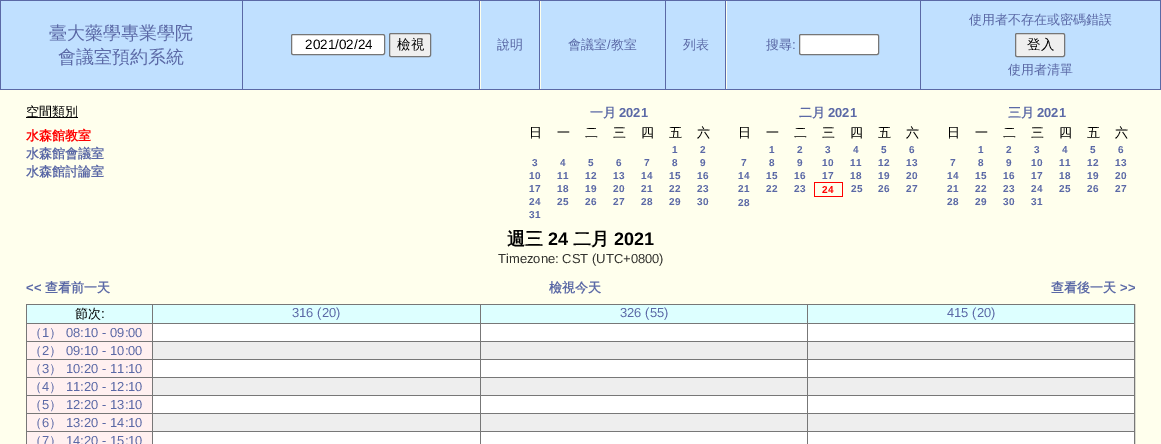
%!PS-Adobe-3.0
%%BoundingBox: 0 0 1161 444
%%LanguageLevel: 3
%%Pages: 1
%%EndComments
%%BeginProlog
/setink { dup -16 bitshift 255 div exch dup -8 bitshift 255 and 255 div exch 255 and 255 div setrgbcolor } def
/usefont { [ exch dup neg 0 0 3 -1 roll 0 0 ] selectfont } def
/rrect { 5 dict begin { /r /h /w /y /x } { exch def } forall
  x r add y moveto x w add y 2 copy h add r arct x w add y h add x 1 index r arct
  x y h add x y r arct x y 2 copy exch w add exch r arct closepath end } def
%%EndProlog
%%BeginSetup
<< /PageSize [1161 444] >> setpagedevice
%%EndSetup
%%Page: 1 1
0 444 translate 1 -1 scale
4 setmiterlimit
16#FFFFED setink
0 0 1161 444 rectfill
[
    [0 0 1161 1 16#5B69A6]
    [1160 0 1 90 16#5B69A6]
    [0 89 1161 1 16#5B69A6]
    [0 0 1 90 16#5B69A6]
    [1 1 241 88 16#C0E0FF]
] { aload pop setink rectfill } forall
/WenQuanYiZenHei-Medium 18 usefont
16#5B69A6 setink
49 39 moveto (臺大藥學專業學院) show
58 63 moveto (會議室預約系統) show
16#C0E0FF setink
243 1 236 88 rectfill
16#5B69A6 setink
242 0 1 90 rectfill
16#FFFFFF setink
291.5 34.5 93 20 1.5 rrect gsave fill grestore
16#767676 setink
stroke
/LiberationSans-Regular 13.5 usefont
16#000000 setink
305 49 moveto (2021/02/24) show
16#EFEFEF setink
389.5 33.5 41 23 1.5 rrect gsave fill grestore
16#767676 setink
stroke
/WenQuanYiZenHei-Medium 13.5 usefont
16#000000 setink
397 49 moveto (檢視) show
16#C0E0FF setink
481 1 58 88 rectfill
16#5B69A6 setink
479 0 1 90 rectfill
/WenQuanYiZenHei-Medium 13 usefont
497 49 moveto (說明) show
16#C0E0FF setink
541 1 124 88 rectfill
16#5B69A6 setink
539 0 1 90 rectfill
568 49 moveto (會議室 教室) show
/LiberationSans-Regular 13 usefont
607 49 moveto (/) show
16#C0E0FF setink
666 1 59 88 rectfill
16#5B69A6 setink
665 0 1 90 rectfill
/WenQuanYiZenHei-Medium 13 usefont
683 49 moveto (列表) show
16#C0E0FF setink
727 1 193 88 rectfill
16#5B69A6 setink
725 0 1 90 rectfill
766 49 moveto (搜尋) show
/LiberationSans-Regular 13 usefont
792 49 moveto (:) show
16#FFFFFF setink
799.5 34.5 79 20 1.5 rrect gsave fill grestore
16#767676 setink
stroke
16#C0E0FF setink
921 1 239 88 rectfill
16#5B69A6 setink
920 0 1 90 rectfill
/WenQuanYiZenHei-Medium 13 usefont
969 24 moveto (使用者不存在或密碼錯誤) show
16#EFEFEF setink
1015.5 33.5 49 23 1.5 rrect gsave fill grestore
16#767676 setink
stroke
/WenQuanYiZenHei-Medium 13.5 usefont
16#000000 setink
1027 49 moveto (登入) show
/WenQuanYiZenHei-Medium 13 usefont
16#5B69A6 setink
1008 74 moveto (使用者清單) show
16#000000 setink
26 117 52 1 rectfill
26 116 moveto (空間類別) show
/WenQuanYiZenHei-Bold 13 usefont
16#FF0000 setink
26 140 moveto (水森館教室) show
16#5B69A6 setink
[
    [(水森館會議室) 26 158]
    [(水森館討論室) 26 176]
    [(一月) 590 117]
] { aload pop moveto show } forall
/LiberationSans-Bold 13 usefont
619 117 moveto (2021) show
/WenQuanYiZenHei-Medium 13 usefont
16#000000 setink
[
    [(日) 529 137]
    [(一) 557 137]
    [(二) 585 137]
    [(三) 613 137]
    [(四) 641 137]
    [(五) 669 137]
    [(六) 697 137]
] { aload pop moveto show } forall
/LiberationSans-Bold 10 usefont
16#5B69A6 setink
[
    [(1) 672 153]
    [(2) 700 153]
    [(3) 532 166]
    [(4) 560 166]
    [(5) 588 166]
    [(6) 616 166]
    [(7) 644 166]
    [(8) 672 166]
    [(9) 700 166]
    [(10) 529 179]
    [(11) 557 179]
    [(12) 585 179]
    [(13) 613 179]
    [(14) 641 179]
    [(15) 669 179]
    [(16) 697 179]
    [(17) 529 192]
    [(18) 557 192]
    [(19) 585 192]
    [(20) 613 192]
    [(21) 641 192]
    [(22) 669 192]
    [(23) 697 192]
    [(24) 529 205]
    [(25) 557 205]
    [(26) 585 205]
    [(27) 613 205]
    [(28) 641 205]
    [(29) 669 205]
    [(30) 697 205]
    [(31) 529 218]
] { aload pop moveto show } forall
/WenQuanYiZenHei-Bold 13 usefont
799 117 moveto (二月) show
/LiberationSans-Bold 13 usefont
828 117 moveto (2021) show
/WenQuanYiZenHei-Medium 13 usefont
16#000000 setink
[
    [(日) 738 137]
    [(一) 766 137]
    [(二) 794 137]
    [(三) 822 137]
    [(四) 850 137]
    [(五) 878 137]
    [(六) 906 137]
] { aload pop moveto show } forall
/LiberationSans-Bold 10 usefont
16#5B69A6 setink
[
    [(1) 769 153]
    [(2) 797 153]
    [(3) 825 153]
    [(4) 853 153]
    [(5) 881 153]
    [(6) 909 153]
    [(7) 741 166]
    [(8) 769 166]
    [(9) 797 166]
    [(10) 822 166]
    [(11) 850 166]
    [(12) 878 166]
    [(13) 906 166]
    [(14) 738 179]
    [(15) 766 179]
    [(16) 794 179]
    [(17) 822 179]
    [(18) 850 179]
    [(19) 878 179]
    [(20) 906 179]
    [(21) 738 192]
    [(22) 766 192]
    [(23) 794 192]
] { aload pop moveto show } forall
[
    [814 182 29 1 16#FF0000]
    [842 182 1 15 16#FF0000]
    [814 196 29 1 16#FF0000]
    [814 182 1 15 16#FF0000]
] { aload pop setink rectfill } forall
822 193 moveto (24) show
16#5B69A6 setink
[
    [(25) 851 192]
    [(26) 878 192]
    [(27) 906 192]
    [(28) 738 206]
] { aload pop moveto show } forall
/WenQuanYiZenHei-Bold 13 usefont
1008 117 moveto (三月) show
/LiberationSans-Bold 13 usefont
1037 117 moveto (2021) show
/WenQuanYiZenHei-Medium 13 usefont
16#000000 setink
[
    [(日) 947 137]
    [(一) 975 137]
    [(二) 1003 137]
    [(三) 1031 137]
    [(四) 1059 137]
    [(五) 1087 137]
    [(六) 1115 137]
] { aload pop moveto show } forall
/LiberationSans-Bold 10 usefont
16#5B69A6 setink
[
    [(1) 978 153]
    [(2) 1006 153]
    [(3) 1034 153]
    [(4) 1062 153]
    [(5) 1090 153]
    [(6) 1118 153]
    [(7) 950 166]
    [(8) 978 166]
    [(9) 1006 166]
    [(10) 1031 166]
    [(11) 1059 166]
    [(12) 1087 166]
    [(13) 1115 166]
    [(14) 947 179]
    [(15) 975 179]
    [(16) 1003 179]
    [(17) 1031 179]
    [(18) 1059 179]
    [(19) 1087 179]
    [(20) 1115 179]
    [(21) 947 192]
    [(22) 975 192]
    [(23) 1003 192]
    [(24) 1031 192]
    [(25) 1059 192]
    [(26) 1087 192]
    [(27) 1115 192]
    [(28) 947 205]
    [(29) 975 205]
    [(30) 1003 205]
    [(31) 1031 205]
] { aload pop moveto show } forall
/WenQuanYiZenHei-Bold 18 usefont
16#000000 setink
507 245 moveto (週三) show
/LiberationSans-Bold 18 usefont
548 245 moveto (24) show
/WenQuanYiZenHei-Bold 18 usefont
573 245 moveto (二月) show
/LiberationSans-Bold 18 usefont
614 245 moveto (2021) show
/LiberationSans-Regular 13 usefont
16#33332F setink
498 263 moveto (Timezone: CST \(UTC+0800\)) show
/LiberationSans-Bold 13 usefont
16#5B69A6 setink
26 292 moveto (<<) show
/WenQuanYiZenHei-Bold 13 usefont
[
    [(查看前一天) 45 292]
    [(檢視今天) 549 292]
    [(查看後一天) 1051 292]
] { aload pop moveto show } forall
/LiberationSans-Bold 13 usefont
1120 292 moveto (>>) show
16#777777 setink
26.5 304.5 1108 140 rectstroke
16#DDFFFF setink
27 305 125 18 rectfill
/WenQuanYiZenHei-Medium 13 usefont
16#000000 setink
75 318 moveto (節次) show
/LiberationSans-Regular 13 usefont
101 318 moveto (:) show
16#DDFFFF setink
153 305 327 18 rectfill
16#777777 setink
152 305 1 18 rectfill
16#5B69A6 setink
292 317 moveto (316 \(20\)) show
16#DDFFFF setink
481 305 326 18 rectfill
16#777777 setink
480 305 1 18 rectfill
16#5B69A6 setink
620 317 moveto (326 \(55\)) show
16#DDFFFF setink
808 305 326 18 rectfill
16#777777 setink
807 305 1 18 rectfill
16#5B69A6 setink
947 317 moveto (415 \(20\)) show
16#FFF0F0 setink
27 324 125 17 rectfill
16#777777 setink
27 323 1107 1 rectfill
/WenQuanYiZenHei-Medium 13 usefont
16#5B69A6 setink
29 337 moveto (（) show
/LiberationSans-Regular 13 usefont
42 337 moveto (1) show
/WenQuanYiZenHei-Medium 13 usefont
49 337 moveto (）) show
/LiberationSans-Regular 13 usefont
66 337 moveto (08:10 - 09:00) show
[
    [153 324 327 17 16#FFFFFF]
    [152 323 1 18 16#777777]
    [481 324 326 17 16#FFFFFF]
    [480 323 1 18 16#777777]
    [808 324 326 17 16#FFFFFF]
    [807 323 1 18 16#777777]
    [27 342 125 17 16#FFF0F0]
    [27 341 1107 1 16#777777]
] { aload pop setink rectfill } forall
/WenQuanYiZenHei-Medium 13 usefont
16#5B69A6 setink
29 355 moveto (（) show
/LiberationSans-Regular 13 usefont
42 355 moveto (2) show
/WenQuanYiZenHei-Medium 13 usefont
49 355 moveto (）) show
/LiberationSans-Regular 13 usefont
66 355 moveto (09:10 - 10:00) show
[
    [153 342 327 17 16#EEEEEE]
    [152 341 1 18 16#777777]
    [481 342 326 17 16#EEEEEE]
    [480 341 1 18 16#777777]
    [808 342 326 17 16#EEEEEE]
    [807 341 1 18 16#777777]
    [27 360 125 17 16#FFF0F0]
    [27 359 1107 1 16#777777]
] { aload pop setink rectfill } forall
/WenQuanYiZenHei-Medium 13 usefont
16#5B69A6 setink
29 373 moveto (（) show
/LiberationSans-Regular 13 usefont
42 373 moveto (3) show
/WenQuanYiZenHei-Medium 13 usefont
49 373 moveto (）) show
/LiberationSans-Regular 13 usefont
66 373 moveto (10:20 - 11:10) show
[
    [153 360 327 17 16#FFFFFF]
    [152 359 1 18 16#777777]
    [481 360 326 17 16#FFFFFF]
    [480 359 1 18 16#777777]
    [808 360 326 17 16#FFFFFF]
    [807 359 1 18 16#777777]
    [27 378 125 17 16#FFF0F0]
    [27 377 1107 1 16#777777]
] { aload pop setink rectfill } forall
/WenQuanYiZenHei-Medium 13 usefont
16#5B69A6 setink
29 391 moveto (（) show
/LiberationSans-Regular 13 usefont
42 391 moveto (4) show
/WenQuanYiZenHei-Medium 13 usefont
49 391 moveto (）) show
/LiberationSans-Regular 13 usefont
66 391 moveto (11:20 - 12:10) show
[
    [153 378 327 17 16#EEEEEE]
    [152 377 1 18 16#777777]
    [481 378 326 17 16#EEEEEE]
    [480 377 1 18 16#777777]
    [808 378 326 17 16#EEEEEE]
    [807 377 1 18 16#777777]
    [27 396 125 17 16#FFF0F0]
    [27 395 1107 1 16#777777]
] { aload pop setink rectfill } forall
/WenQuanYiZenHei-Medium 13 usefont
16#5B69A6 setink
29 409 moveto (（) show
/LiberationSans-Regular 13 usefont
42 409 moveto (5) show
/WenQuanYiZenHei-Medium 13 usefont
49 409 moveto (）) show
/LiberationSans-Regular 13 usefont
66 409 moveto (12:20 - 13:10) show
[
    [153 396 327 17 16#FFFFFF]
    [152 395 1 18 16#777777]
    [481 396 326 17 16#FFFFFF]
    [480 395 1 18 16#777777]
    [808 396 326 17 16#FFFFFF]
    [807 395 1 18 16#777777]
    [27 414 125 17 16#FFF0F0]
    [27 413 1107 1 16#777777]
] { aload pop setink rectfill } forall
/WenQuanYiZenHei-Medium 13 usefont
16#5B69A6 setink
29 427 moveto (（) show
/LiberationSans-Regular 13 usefont
42 427 moveto (6) show
/WenQuanYiZenHei-Medium 13 usefont
49 427 moveto (）) show
/LiberationSans-Regular 13 usefont
66 427 moveto (13:20 - 14:10) show
[
    [153 414 327 17 16#EEEEEE]
    [152 413 1 18 16#777777]
    [481 414 326 17 16#EEEEEE]
    [480 413 1 18 16#777777]
    [808 414 326 17 16#EEEEEE]
    [807 413 1 18 16#777777]
    [27 432 125 12 16#FFF0F0]
    [27 431 1107 1 16#777777]
] { aload pop setink rectfill } forall
/WenQuanYiZenHei-Medium 13 usefont
16#5B69A6 setink
29 445 moveto (（) show
/LiberationSans-Regular 13 usefont
42 445 moveto (7) show
/WenQuanYiZenHei-Medium 13 usefont
49 445 moveto (）) show
/LiberationSans-Regular 13 usefont
66 445 moveto (14:20 - 15:10) show
[
    [153 432 327 12 16#FFFFFF]
    [152 431 1 13 16#777777]
    [481 432 326 12 16#FFFFFF]
    [480 431 1 13 16#777777]
    [808 432 326 12 16#FFFFFF]
    [807 431 1 13 16#777777]
] { aload pop setink rectfill } forall
showpage
%%EOF
